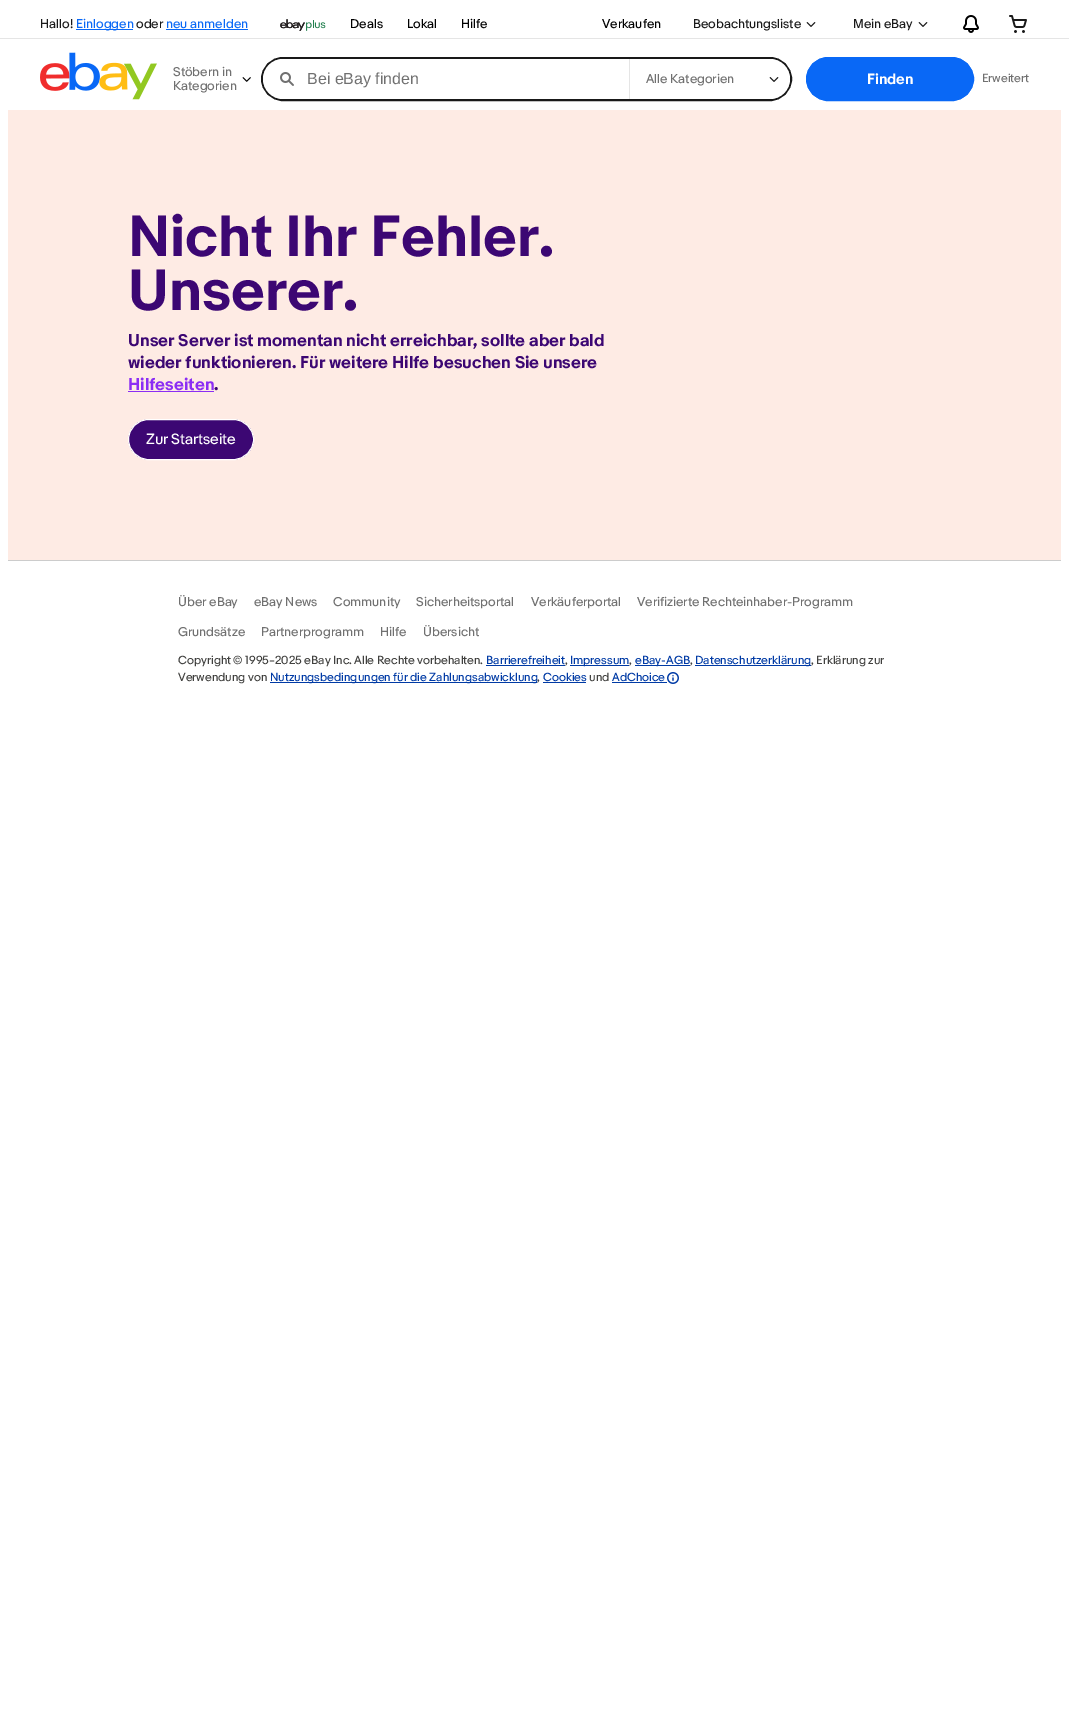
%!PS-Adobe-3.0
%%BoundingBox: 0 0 1069 1736
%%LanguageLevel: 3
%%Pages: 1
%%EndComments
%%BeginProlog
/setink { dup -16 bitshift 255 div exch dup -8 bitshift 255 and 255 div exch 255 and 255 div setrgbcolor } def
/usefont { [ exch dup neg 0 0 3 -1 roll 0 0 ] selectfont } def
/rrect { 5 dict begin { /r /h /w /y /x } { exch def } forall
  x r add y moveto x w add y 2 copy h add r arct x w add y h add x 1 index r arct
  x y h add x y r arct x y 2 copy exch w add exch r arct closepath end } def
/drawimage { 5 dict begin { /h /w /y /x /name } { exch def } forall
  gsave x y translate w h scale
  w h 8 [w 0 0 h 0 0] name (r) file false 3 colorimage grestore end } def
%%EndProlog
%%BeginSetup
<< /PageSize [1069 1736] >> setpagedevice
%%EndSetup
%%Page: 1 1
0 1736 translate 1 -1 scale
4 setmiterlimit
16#FFFFFF setink
0 0 1069 1736 rectfill
/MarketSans-Regular 12 usefont
16#191919 setink
40 28 moveto (Hallo!) show
16#0968F6 setink
76 29 57 1 rectfill
76 28 moveto (Einloggen) show
16#191919 setink
136 28 moveto (oder) show
16#0968F6 setink
166 28 moveto (neu anmelden) show
166 29 82 1 rectfill
(img1.raw) 280 19 46 12 drawimage
16#000000 setink
[
    [(Deals) 350 28]
    [(Lokal) 407 28]
    [(Hilfe) 461 28]
    [(Verkaufen) 602 28]
] { aload pop moveto show } forall
16#191919 setink
693 28 moveto (Beobachtungsliste) show
(img2.raw) 806 22 10 5 drawimage
853 28 moveto (Mein eBay) show
(img2.raw) 918 22 10 5 drawimage
(img3.raw) 963 15 16 18 drawimage
(img4.raw) 1009 15 18 18 drawimage
(img5.raw) 40 52 117 48 drawimage
16#707070 setink
173 76 moveto (Stöbern in) show
173 90 moveto (Kategorien) show
(img6.raw) 242 77 9 5 drawimage
16#191919 setink
2 setlinewidth
262 58 529 42 21 rrect stroke
16#E5E5E5 setink
629 59 1 40 rectfill
16#FFFFFF setink
283 59 moveto 629 59 lineto 629 99 lineto 283 99 lineto 272 99 263 90 263 79 curveto 263 68 272 59 283 59 curveto closepath fill
(img7.raw) 280 72 14 14 drawimage
/LiberationSans-Regular 16 usefont
16#707070 setink
307 84 moveto (Bei eBay finden) show
16#FFFFFF setink
630 59 moveto 770 59 lineto 781 59 790 68 790 79 curveto 790 90 781 99 770 99 curveto 630 99 lineto closepath fill
(img2.raw) 769 77 10 5 drawimage
/MarketSans-Regular 12 usefont
16#707070 setink
646 83 moveto (Alle Kategorien) show
16#0968F6 setink
806.5 57.5 167 43 21.5 rrect gsave fill grestore
1 setlinewidth
stroke
/MarketSans-Bold 14 usefont
16#FFFFFF setink
867 84 moveto (Finden) show
/MarketSans-Regular 11 usefont
16#707070 setink
982 82 moveto (Erweitert) show
16#E5E5E5 setink
0 38 1069 1 rectfill
16#FEEBE4 setink
8 110 1053 450 rectfill
/MarketSans-Bold 54.5 usefont
16#3C0773 setink
128 256 moveto (Nicht Ihr Fehler.) show
128 310 moveto (Unserer.) show
/MarketSans-Bold 16 usefont
128 346 moveto (Unser Server ist momentan nicht erreichbar, sollte aber bald) show
128 368 moveto (wieder funktionieren. Für weitere Hilfe besuchen Sie unsere) show
16#8B2DF4 setink
128 390 moveto (Hilfeseiten) show
128 391 86 1 rectfill
16#3C0773 setink
214 390 moveto (.) show
128.5 419.5 125 40 20 rrect gsave fill grestore
16#FFFFFF setink
stroke
/MarketSans-Regular 14 usefont
146 444 moveto (Zur Startseite) show
16#CCCCCC setink
8 560 1053 1 rectfill
/MarketSans-Regular 12 usefont
16#707070 setink
[
    [(Über eBay) 178 606]
    [(eBay News) 254 606]
    [(Community) 333 606]
    [(Sicherheitsportal) 416 606]
    [(Verkäuferportal) 531 606]
    [(Verifizierte Rechteinhaber-Programm) 637 606]
    [(Grundsätze) 178 636]
    [(Partnerprogramm) 261 636]
    [(Hilfe) 380 636]
    [(Übersicht) 423 636]
] { aload pop moveto show } forall
/MarketSans-Regular 11 usefont
16#41413F setink
178 664 moveto (Copyright © 1995–2025 eBay Inc. Alle Rechte vorbehalten.) show
16#003AA5 setink
486 664 moveto (Barrierefreiheit) show
486 665 79 1 rectfill
16#41413F setink
565 664 moveto (,) show
16#003AA5 setink
570 665 59 1 rectfill
570 664 moveto (Impressum) show
16#41413F setink
629 664 moveto (,) show
16#003AA5 setink
635 665 55 1 rectfill
635 664 moveto (eBay-AGB) show
16#41413F setink
690 664 moveto (,) show
16#003AA5 setink
695 665 116 1 rectfill
695 664 moveto (Datenschutzerklärung) show
16#41413F setink
811 664 moveto (, Erklärung zur) show
178 681 moveto (Verwendung von) show
16#003AA5 setink
270 682 267 1 rectfill
270 681 moveto (Nutzungsbedingungen für die Zahlungsabwicklung) show
16#41413F setink
537 681 moveto (,) show
16#003AA5 setink
543 681 moveto (Cookies) show
543 682 43 1 rectfill
16#41413F setink
589 681 moveto (und) show
16#003AA5 setink
612 681 moveto (AdChoice) show
612 682 55 1 rectfill
(img8.raw) 667 672 12 12 drawimage
showpage
%%EOF
